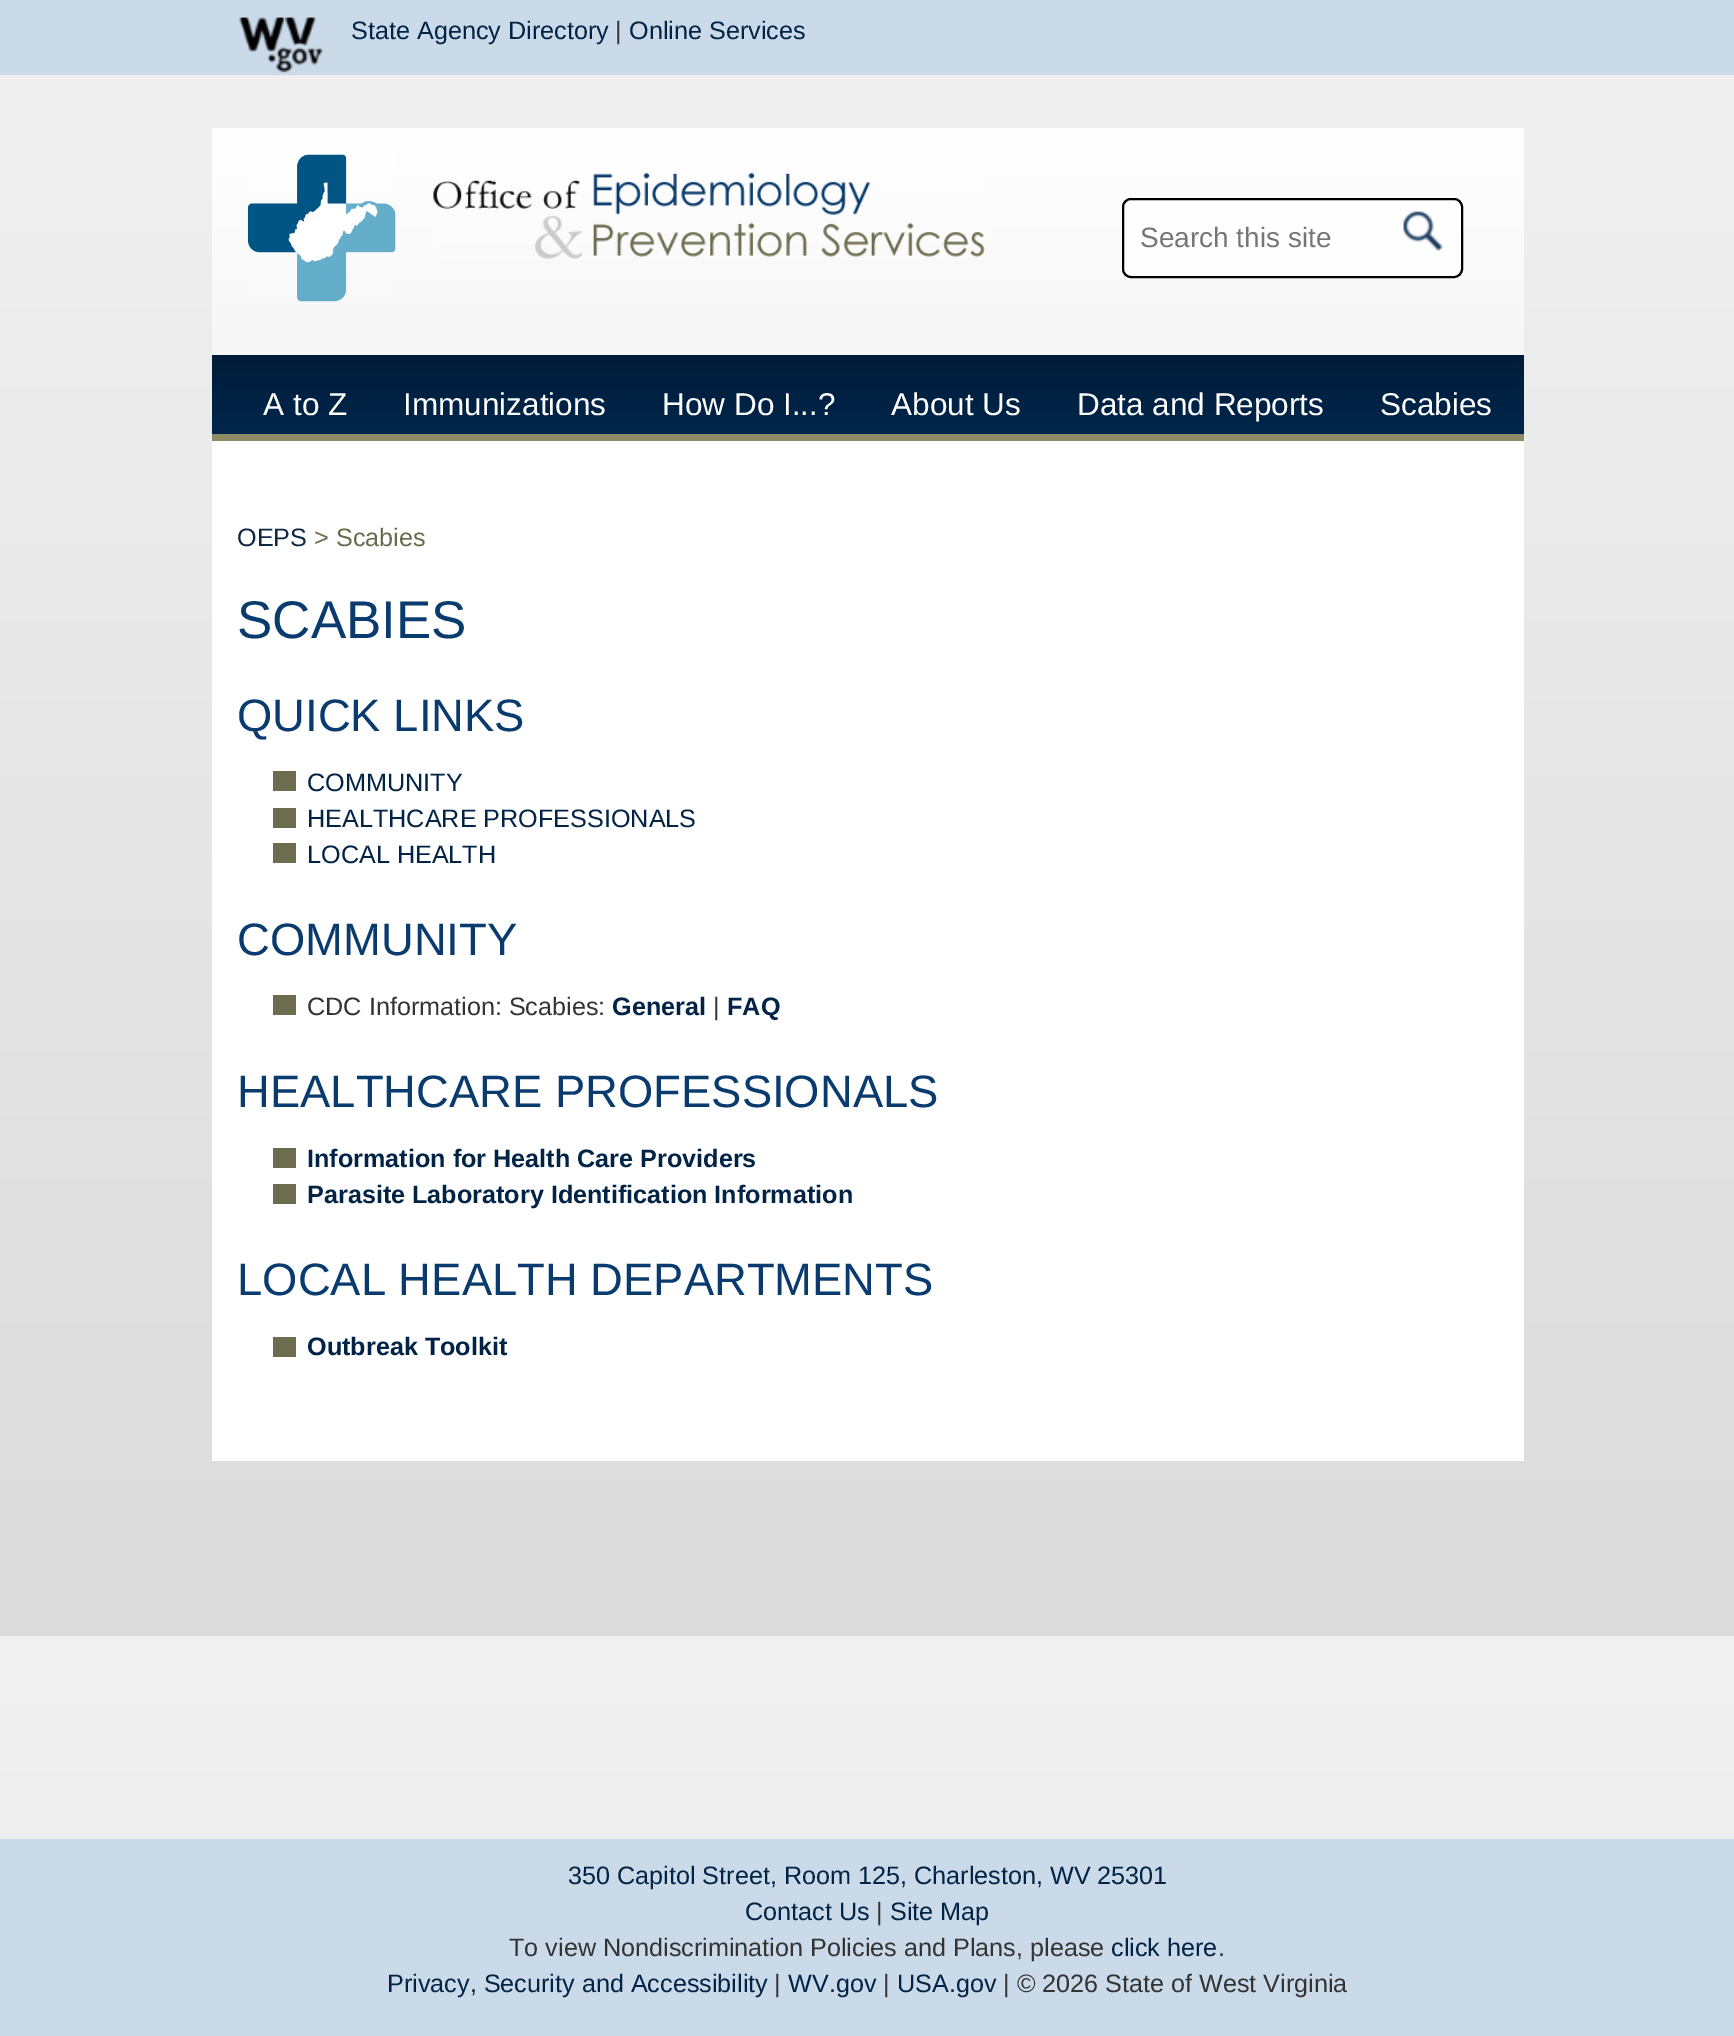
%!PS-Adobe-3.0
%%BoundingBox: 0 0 1734 2036
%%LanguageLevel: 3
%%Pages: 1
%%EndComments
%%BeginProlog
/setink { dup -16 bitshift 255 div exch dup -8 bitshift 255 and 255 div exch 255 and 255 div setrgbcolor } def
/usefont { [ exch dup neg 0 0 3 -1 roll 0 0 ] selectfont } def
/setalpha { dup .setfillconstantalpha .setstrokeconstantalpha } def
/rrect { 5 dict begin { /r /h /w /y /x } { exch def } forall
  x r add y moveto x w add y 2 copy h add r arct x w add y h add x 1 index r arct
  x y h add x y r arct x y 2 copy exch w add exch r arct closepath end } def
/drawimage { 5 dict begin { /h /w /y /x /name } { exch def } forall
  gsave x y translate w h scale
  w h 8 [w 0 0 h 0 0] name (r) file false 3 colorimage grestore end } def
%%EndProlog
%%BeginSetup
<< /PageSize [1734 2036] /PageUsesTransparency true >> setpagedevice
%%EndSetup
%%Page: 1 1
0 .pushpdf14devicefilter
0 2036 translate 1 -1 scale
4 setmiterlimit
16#FFFFFF setink
0 0 1734 2036 rectfill
gsave 0 75 moveto 1734 75 lineto 1734 1636 lineto 0 1636 lineto closepath clip newpath
<< /ShadingType 2 /ColorSpace /DeviceRGB /Coords [867 0 867 1636] /Extend [true true] /Function << /FunctionType 2 /Domain [0 1] /C0 [0.945 0.945 0.945] /C1 [0.859 0.859 0.859] /N 1 >> >> shfill grestore
gsave 0 1636 moveto 1734 1636 lineto 1734 1839 lineto 0 1839 lineto closepath clip newpath
<< /ShadingType 2 /ColorSpace /DeviceRGB /Coords [867 1636 867 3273] /Extend [true true] /Function << /FunctionType 2 /Domain [0 1] /C0 [0.945 0.945 0.945] /C1 [0.859 0.859 0.859] /N 1 >> >> shfill grestore
16#CADAE9 setink
0 0 1734 75 rectfill
(img1.raw) 239 17 84 56 drawimage
/LiberationSans-Regular 25.2 usefont
16#012345 setink
351 39 moveto (State Agency Directory) show
16#333333 setink
615 39 moveto (|) show
16#012345 setink
629 39 moveto (Online Services) show
gsave 212 128 moveto 1524 128 lineto 1524 355 lineto 212 355 lineto closepath clip newpath
<< /ShadingType 2 /ColorSpace /DeviceRGB /Coords [868 128 868 441] /Extend [true true] /Function << /FunctionType 2 /Domain [0 1] /C0 [1 1 1] /C1 [0.953 0.953 0.953] /N 1 >> >> shfill grestore
(img2.raw) 247 154 149 148 drawimage
(img3.raw) 433 172 552 87 drawimage
0.85 setalpha
16#FFFFFF setink
1123 199 339 78 8 rrect fill
1 setalpha
16#000000 setink
2 setlinewidth
1123 199 339 78 8 rrect stroke
/LiberationSans-Regular 28 usefont
16#757575 setink
1140 247 moveto (Search this site) show
(img4.raw) 1403 211 40 40 drawimage
gsave 212 355 moveto 1524 355 lineto 1524 434 lineto 212 434 lineto closepath clip newpath
<< /ShadingType 2 /ColorSpace /DeviceRGB /Coords [868 355 868 434] /Extend [true true] /Function << /FunctionType 2 /Domain [0 1] /C0 [0.004 0.11 0.224] /C1 [0 0.149 0.294] /N 1 >> >> shfill grestore
16#8E8C66 setink
212 434 1312 7 rectfill
/LiberationSans-Regular 31.5 usefont
16#FFFFFF setink
[
    [(A to Z) 263 415]
    [(Immunizations) 403 415]
    [(How Do I...?) 662 415]
    [(About Us) 891 415]
    [(Data and Reports) 1077 415]
    [(Scabies) 1380 415]
] { aload pop moveto show } forall
212 441 1312 1020 rectfill
/LiberationSans-Regular 25.2 usefont
16#0E2843 setink
237 546 moveto (OEPS) show
16#6B6A4D setink
314 546 moveto (> Scabies) show
/LiberationSans-Regular 53 usefont
16#093B6E setink
237 638 moveto (SCABIES) show
/LiberationSans-Regular 45.4 usefont
237 731 moveto (QUICK LINKS) show
16#6D6C4F setink
273 771 23 20 rectfill
/LiberationSans-Regular 25.2 usefont
16#012345 setink
307 791 moveto (COMMUNITY) show
16#6D6C4F setink
273 808 23 20 rectfill
16#012345 setink
307 827 moveto (HEALTHCARE PROFESSIONALS) show
16#6D6C4F setink
273 843 23 20 rectfill
16#012345 setink
307 863 moveto (LOCAL HEALTH) show
/LiberationSans-Regular 45.4 usefont
16#093B6E setink
237 955 moveto (COMMUNITY) show
16#6D6C4F setink
273 995 23 20 rectfill
/LiberationSans-Regular 25.2 usefont
16#333333 setink
307 1015 moveto (CDC Information: Scabies:) show
/LiberationSans-Bold 25.2 usefont
16#012345 setink
612 1015 moveto (General) show
/LiberationSans-Regular 25.2 usefont
16#333333 setink
713 1015 moveto (|) show
/LiberationSans-Bold 25.2 usefont
16#012345 setink
727 1015 moveto (FAQ) show
/LiberationSans-Regular 45.4 usefont
16#093B6E setink
237 1107 moveto (HEALTHCARE PROFESSIONALS) show
16#6D6C4F setink
273 1148 23 20 rectfill
/LiberationSans-Bold 25.2 usefont
16#012345 setink
307 1167 moveto (Information for Health Care Providers) show
16#6D6C4F setink
273 1184 23 20 rectfill
16#012345 setink
307 1203 moveto (Parasite Laboratory Identification Information) show
/LiberationSans-Regular 45.4 usefont
16#093B6E setink
237 1295 moveto (LOCAL HEALTH DEPARTMENTS) show
16#6D6C4F setink
273 1337 23 20 rectfill
/LiberationSans-Bold 25.2 usefont
16#012345 setink
307 1355 moveto (Outbreak Toolkit) show
16#CADAE9 setink
0 1839 1734 197 rectfill
/LiberationSans-Regular 25.2 usefont
16#012345 setink
568 1884 moveto (350 Capitol Street, Room 125, Charleston, WV 25301) show
745 1920 moveto (Contact Us) show
16#333333 setink
876 1920 moveto (|) show
16#012345 setink
890 1920 moveto (Site Map) show
16#333333 setink
509 1956 moveto (To view Nondiscrimination Policies and Plans, please) show
16#012345 setink
1111 1956 moveto (click here) show
16#333333 setink
1218 1956 moveto (.) show
16#012345 setink
387 1992 moveto (Privacy, Security and Accessibility) show
16#333333 setink
774 1992 moveto (|) show
16#012345 setink
788 1992 moveto (WV.gov) show
16#333333 setink
883 1992 moveto (|) show
16#012345 setink
897 1992 moveto (USA.gov) show
16#333333 setink
1003 1992 moveto (| © 2026 State of West Virginia) show
.poppdf14devicefilter showpage
%%EOF
